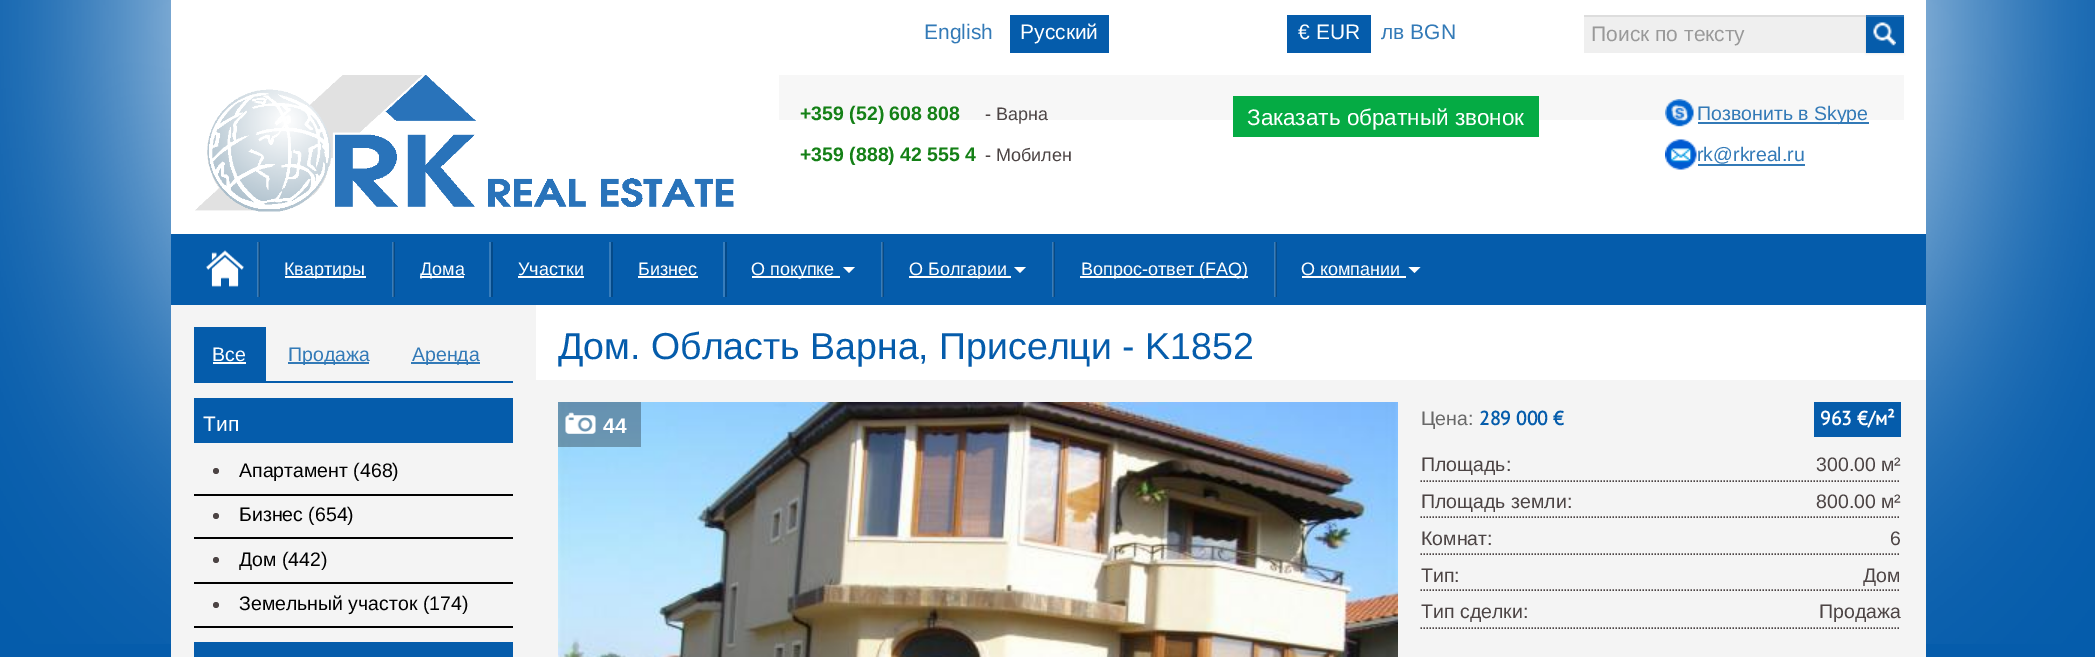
%!PS-Adobe-3.0
%%BoundingBox: 0 0 2095 657
%%LanguageLevel: 3
%%Pages: 1
%%EndComments
%%BeginProlog
/setink { dup -16 bitshift 255 div exch dup -8 bitshift 255 and 255 div exch 255 and 255 div setrgbcolor } def
/usefont { [ exch dup neg 0 0 3 -1 roll 0 0 ] selectfont } def
/setalpha { dup .setfillconstantalpha .setstrokeconstantalpha } def
/disc { newpath 0 360 arc closepath } def
/rrect { 5 dict begin { /r /h /w /y /x } { exch def } forall
  x r add y moveto x w add y 2 copy h add r arct x w add y h add x 1 index r arct
  x y h add x y r arct x y 2 copy exch w add exch r arct closepath end } def
/softshadow { 12 dict begin { /a /b /q /h /w /y /x } { exch def } forall gsave /was 0 def
  9 -2 -9 { dup b mul 4 div /e exch def 1 sub .425 mul 2.718 exch exp 1 add a .99 .min exch div /now exch def
    1 1 now sub 1 was sub div sub setalpha /was now def
    w h .min e 2 mul add 0 gt { x e sub y e sub w e 2 mul add h e 2 mul add
      q e add b .6 mul add w h .min 2 div e add .min 0 .max rrect fill } if } for grestore end } def
/drawimage { 5 dict begin { /h /w /y /x /name } { exch def } forall
  gsave x y translate w h scale
  w h 8 [w 0 0 h 0 0] name (r) file false 3 colorimage grestore end } def
%%EndProlog
%%BeginSetup
<< /PageSize [2095 657] /PageUsesTransparency true >> setpagedevice
%%EndSetup
%%Page: 1 1
0 .pushpdf14devicefilter
0 657 translate 1 -1 scale
4 setmiterlimit
16#055CAB setink
0 0 2095 657 rectfill
(img1.raw) 0 0 2095 644 drawimage
16#FFFFFF setink
171 0 1755 234 rectfill
/LiberationSans-Regular 21 usefont
16#337AB7 setink
924 39 moveto (English) show
16#055CAB setink
1010 15 99 38 rectfill
16#FFFFFF setink
1020 39 moveto (Русский) show
16#055CAB setink
1287 15 84 38 rectfill
16#FFFFFF setink
1298 39 moveto (€ EUR) show
16#337AB7 setink
1381 39 moveto (лв BGN) show
16#EFEFEF setink
1584 17 282 36 rectfill
16#DDDDDD setink
1584 15 282 2 rectfill
16#999999 setink
1591 41 moveto (Поиск по тексту) show
16#000000 setink
1866 17 38 37 0 1 0.07 softshadow
16#055CAB setink
1866 17 38 36 rectfill
(img2.raw) 1873 22 23 24 drawimage
16#2B74B8 setink
1866 15 38 2 rectfill
(img3.raw) 195 75 539 137 drawimage
16#F7F7F7 setink
779 75 1125 45 rectfill
/LiberationSans-Bold 19.5 usefont
16#148016 setink
800 120 moveto (+359 \(52\) 608 808) show
/LiberationSans-Regular 18 usefont
16#4C4444 setink
985 120 moveto (- Варна) show
/LiberationSans-Bold 19.5 usefont
16#148016 setink
800 161 moveto (+359 \(888\) 42 555 4) show
/LiberationSans-Regular 18 usefont
16#4C4444 setink
985 161 moveto (- Мобилен) show
16#05AB44 setink
1233 96 306 41 rectfill
/LiberationSans-Regular 22.5 usefont
16#FFFFFF setink
1247 125 moveto (Заказать обратный звонок) show
(img4.raw) 1665 99 29 28 drawimage
16#337AB7 setink
1698 122 171 2 rectfill
/LiberationSans-Regular 19.5 usefont
1697 120 moveto (Позвонить в Skype) show
(img5.raw) 1665 139 32 31 drawimage
1697 161 moveto (rk@rkreal.ru) show
[
    [1698 164 107 2 16#337AB7]
    [171 234 1755 71 16#055CAB]
    [257 242 2 55 16#377DBC]
] { aload pop setink rectfill } forall
(img6.raw) 206 250 38 37 drawimage
[
    [392 242 2 55 16#377DBC]
] { aload pop setink rectfill } forall
0.2 setalpha
[
    [258 242 2 55 16#000000]
] { aload pop setink rectfill } forall
1 setalpha
[
    [285 276 81 2 16#FFFFFF]
] { aload pop setink rectfill } forall
/LiberationSans-Regular 18 usefont
284 275 moveto (Квартиры) show
[
    [489 242 2 55 16#377DBC]
] { aload pop setink rectfill } forall
0.2 setalpha
[
    [393 242 2 55 16#000000]
] { aload pop setink rectfill } forall
1 setalpha
[
    [420 276 44 2 16#FFFFFF]
] { aload pop setink rectfill } forall
420 275 moveto (Дома) show
16#377DBC setink
609 242 2 55 rectfill
16#044A89 setink
491 242 2 55 rectfill
16#FFFFFF setink
518 275 moveto (Участки) show
[
    [518 276 66 2 16#FFFFFF]
    [723 242 2 55 16#377DBC]
    [611 242 2 55 16#044A89]
] { aload pop setink rectfill } forall
16#FFFFFF setink
638 275 moveto (Бизнес) show
[
    [638 276 60 2 16#FFFFFF]
    [881 242 2 55 16#377DBC]
    [725 242 2 55 16#044A89]
    [752 276 88 2 16#FFFFFF]
] { aload pop setink rectfill } forall
751 275 moveto (О покупке) show
843 267 moveto 855 267 lineto 849 273 lineto closepath fill
[
    [1052 242 2 55 16#377DBC]
] { aload pop setink rectfill } forall
0.2 setalpha
[
    [882 242 2 55 16#000000]
] { aload pop setink rectfill } forall
1 setalpha
[
    [909 276 102 2 16#FFFFFF]
] { aload pop setink rectfill } forall
909 275 moveto (О Болгарии) show
1014 267 moveto 1026 267 lineto 1020 273 lineto closepath fill
[
    [1274 242 2 55 16#377DBC]
] { aload pop setink rectfill } forall
0.2 setalpha
[
    [1053 242 2 55 16#000000]
] { aload pop setink rectfill } forall
1 setalpha
[
    [1080 276 168 2 16#FFFFFF]
] { aload pop setink rectfill } forall
1081 275 moveto (Вопрос-ответ \(FAQ\)) show
0.2 setalpha
16#000000 setink
1275 242 2 55 rectfill
1 setalpha
16#FFFFFF setink
1301 275 moveto (О компании) show
1302 276 104 2 rectfill
1408.5 267 moveto 1420.5 267 lineto 1414.5 273 lineto closepath fill
[
    [171 305 365 352 16#F4F4F4]
    [266 381 247 2 16#055CAB]
    [194 327 72 56 16#055CAB]
] { aload pop setink rectfill } forall
/LiberationSans-Regular 19.5 usefont
16#FFFFFF setink
212 361 moveto (Все) show
213 362 33 2 rectfill
16#337AB7 setink
288 362 81 2 rectfill
288 361 moveto (Продажа) show
411 362 69 2 rectfill
412 361 moveto (Аренда) show
16#055CAB setink
194 398 319 45 rectfill
/LiberationSans-Regular 21 usefont
16#FFFFFF setink
203 431 moveto (Тип) show
16#000000 setink
194 494 319 2 rectfill
16#4C4444 setink
216 471 3 disc fill
/LiberationSans-Regular 19.5 usefont
16#000000 setink
239 477 moveto (Апартамент \(468\)) show
194 537 319 2 rectfill
16#4C4444 setink
216 516 3 disc fill
16#000000 setink
239 521 moveto (Бизнес \(654\)) show
194 582 319 2 rectfill
16#4C4444 setink
216 560 3 disc fill
16#000000 setink
239 566 moveto (Дом \(442\)) show
194 626 319 2 rectfill
16#4C4444 setink
216 605 3 disc fill
16#000000 setink
239 610 moveto (Земельный участок \(174\)) show
16#055CAB setink
194 642 319 15 rectfill
16#FFFFFF setink
536 305 1390 75 rectfill
/LiberationSans-Regular 37.5 usefont
16#055CAB setink
558 359 moveto (Дом. Область Варна, Приселци - K1852) show
16#F4F4F4 setink
536 380 1390 277 rectfill
(img7.raw) 558 402 840 255 drawimage
0.3 setalpha
16#000000 setink
558 402 83 45 rectfill
1 setalpha
(img8.raw) 565 412 31 22 drawimage
/LiberationSans-Bold 21 usefont
16#FFFFFF setink
603 433 moveto (44) show
/LiberationSans-Regular 19.5 usefont
16#696969 setink
1421 425 moveto (Цена:) show
/PTSans-Bold 19.5 usefont
16#055CAB setink
1479 425 moveto (289 000 €) show
1814 402 87 35 rectfill
16#FFFFFF setink
1820 425 moveto (963 €/м²) show
16#4C4444 setink
1.5 setlinewidth
[1.5 1.5] 0 setdash
1420.5 481 moveto 1900.5 481 lineto stroke
/LiberationSans-Regular 19.5 usefont
1421 471 moveto (Площадь:) show
1816 471 moveto (300.00 м²) show
1420.5 517 moveto 1900.5 517 lineto stroke
1421 508 moveto (Площадь земли:) show
1816 508 moveto (800.00 м²) show
1420.5 554 moveto 1900.5 554 lineto stroke
1421 545 moveto (Комнат:) show
1890 545 moveto (6) show
1420.5 590 moveto 1900.5 590 lineto stroke
1421 582 moveto (Тип:) show
1863 582 moveto (Дом) show
1420.5 628 moveto 1900.5 628 lineto stroke
1421 618 moveto (Тип сделки:) show
1819 618 moveto (Продажа) show
.poppdf14devicefilter showpage
%%EOF
